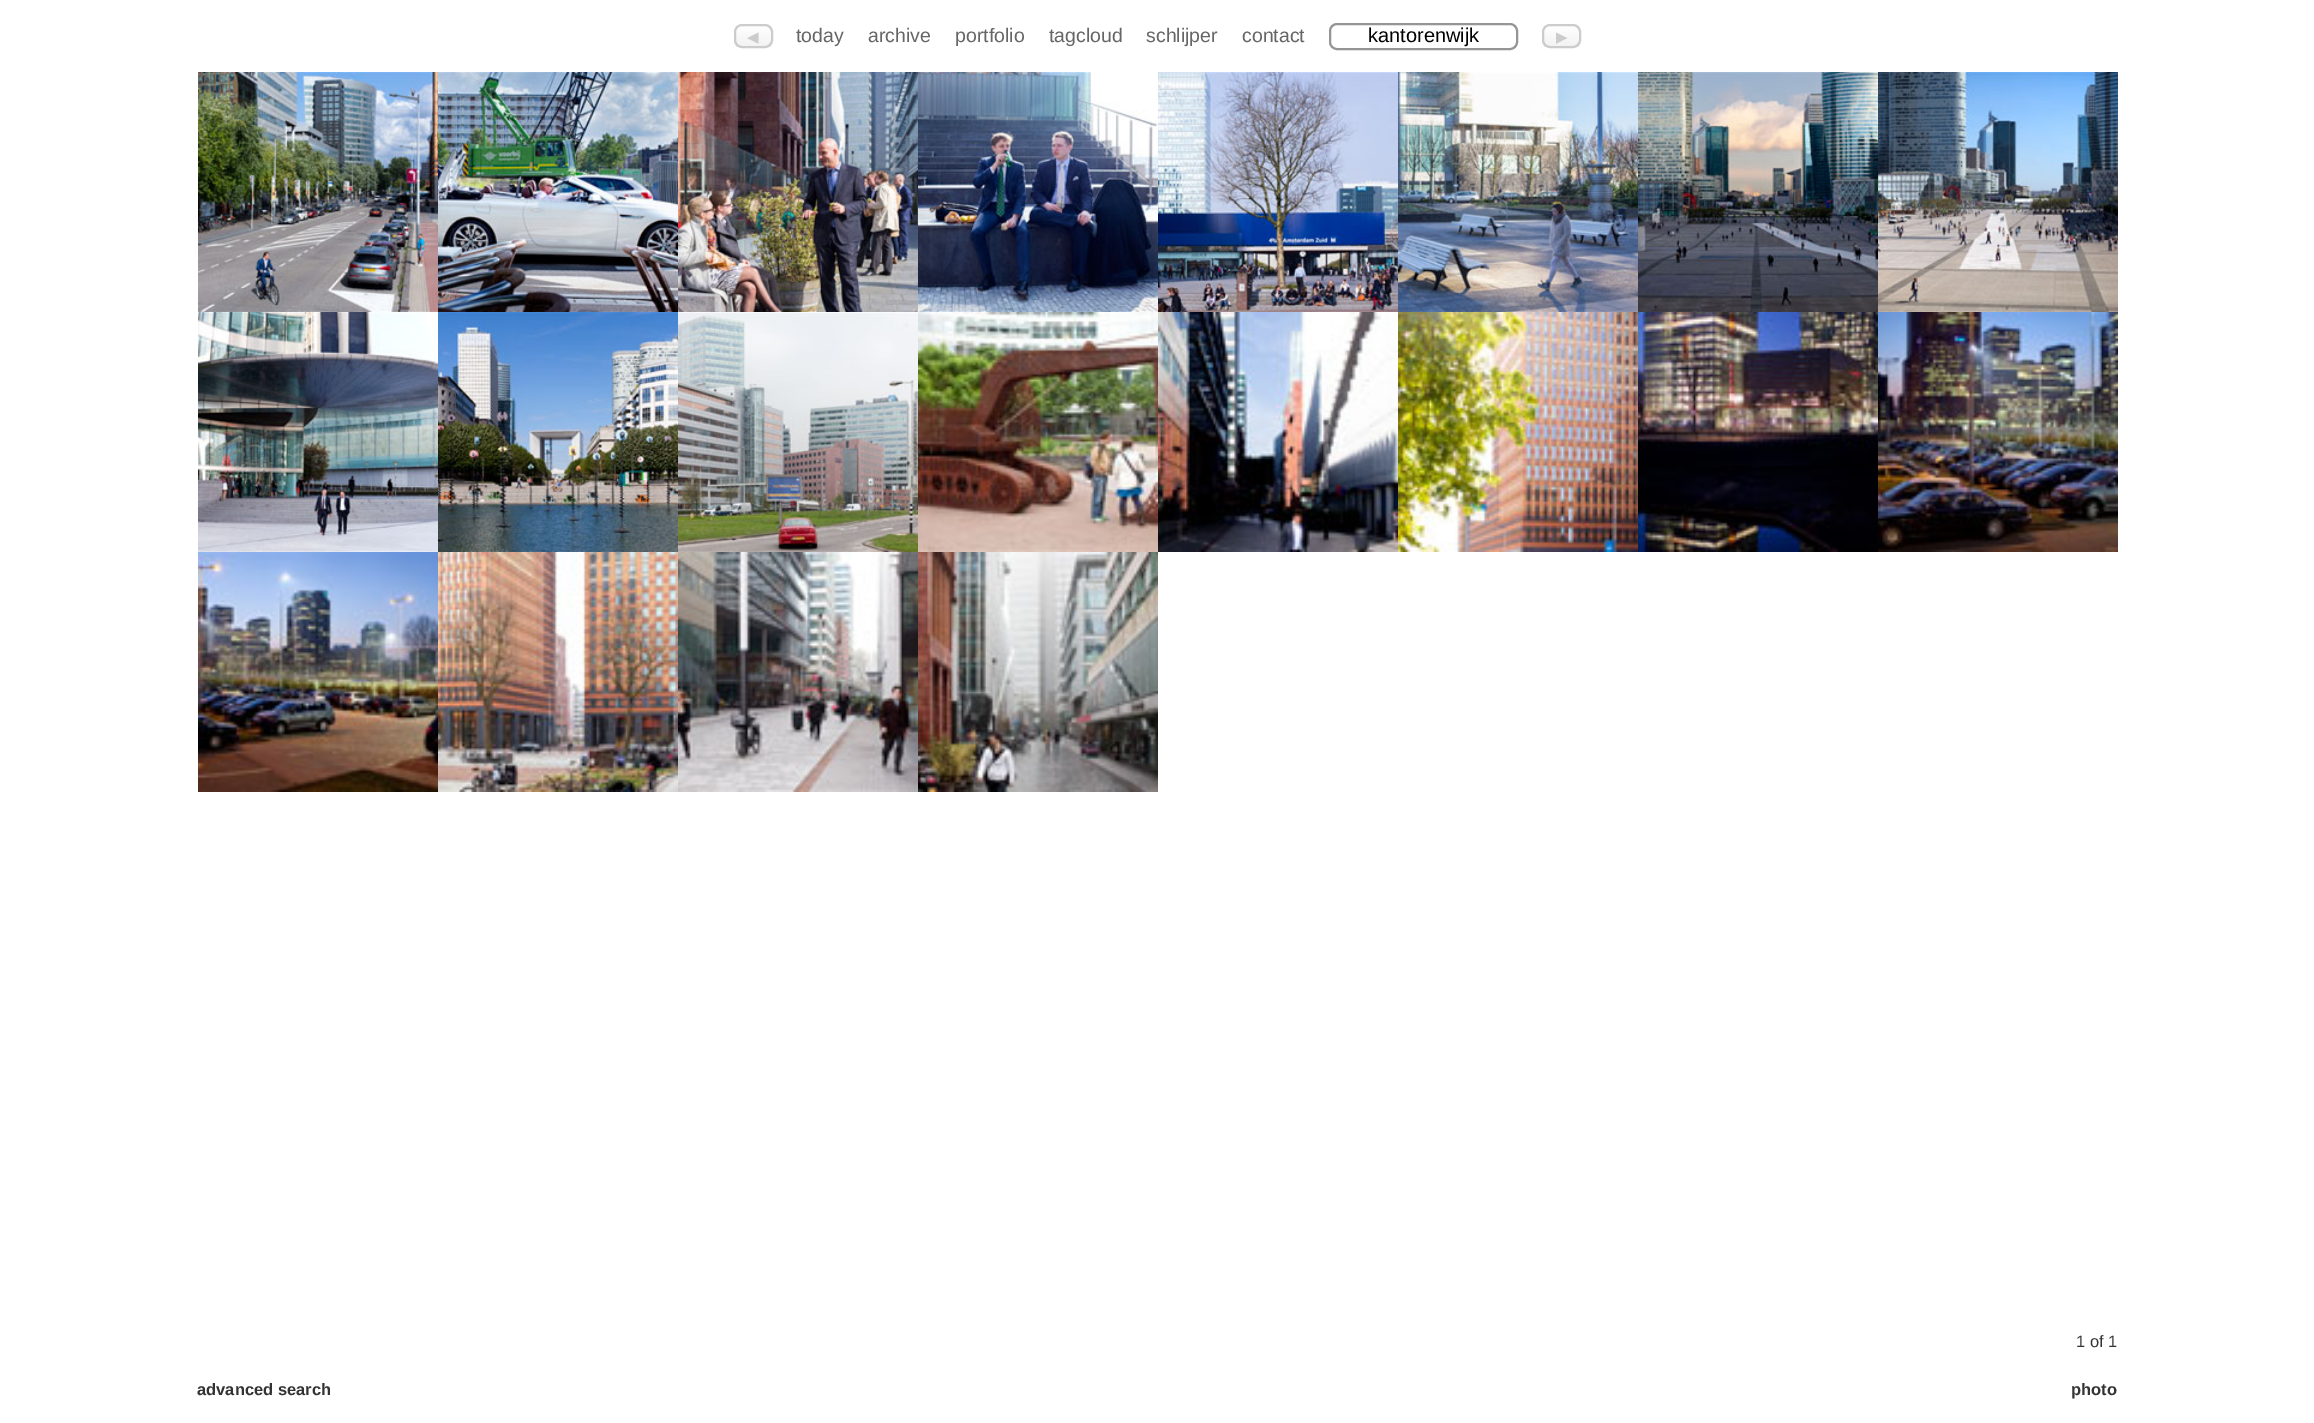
%!PS-Adobe-3.0
%%BoundingBox: 0 0 2314 1423
%%LanguageLevel: 3
%%Pages: 1
%%EndComments
%%BeginProlog
/setink { dup -16 bitshift 255 div exch dup -8 bitshift 255 and 255 div exch 255 and 255 div setrgbcolor } def
/usefont { [ exch dup neg 0 0 3 -1 roll 0 0 ] selectfont } def
/rrect { 5 dict begin { /r /h /w /y /x } { exch def } forall
  x r add y moveto x w add y 2 copy h add r arct x w add y h add x 1 index r arct
  x y h add x y r arct x y 2 copy exch w add exch r arct closepath end } def
/drawimage { 5 dict begin { /h /w /y /x /name } { exch def } forall
  gsave x y translate w h scale
  w h 8 [w 0 0 h 0 0] name (r) file false 3 colorimage grestore end } def
%%EndProlog
%%BeginSetup
<< /PageSize [2314 1423] >> setpagedevice
%%EndSetup
%%Page: 1 1
0 1423 translate 1 -1 scale
4 setmiterlimit
16#FFFFFF setink
0 0 2314 1423 rectfill
gsave
734 24 39 24 8 rrect clip newpath
gsave 734 26 moveto 773 26 lineto 773 47 lineto 734 47 lineto closepath clip newpath
<< /ShadingType 2 /ColorSpace /DeviceRGB /Coords [753 26 753 47] /Extend [true true] /Function << /FunctionType 2 /Domain [0 1] /C0 [1 1 1] /C1 [0.949 0.949 0.949] /N 1 >> >> shfill grestore
grestore
16#CCCCCC setink
2 setlinewidth
735 25 37 22 7 rrect stroke
/DejaVuSans-Regular 15 usefont
747 42 moveto (◀) show
/LiberationSans-Regular 19.5 usefont
16#666666 setink
[
    [(today) 796 42]
    [(archive) 868 42]
    [(portfolio) 955 42]
    [(tagcloud) 1049 42]
    [(schlijper) 1146 42]
    [(contact) 1242 42]
] { aload pop moveto show } forall
16#959595 setink
1330 24 187 25 7 rrect stroke
/LiberationSans-Regular 20 usefont
16#000000 setink
1368 42 moveto (kantorenwijk) show
gsave
1542 24 39 24 8 rrect clip newpath
gsave 1542 26 moveto 1581 26 lineto 1581 47 lineto 1542 47 lineto closepath clip newpath
<< /ShadingType 2 /ColorSpace /DeviceRGB /Coords [1562 26 1562 47] /Extend [true true] /Function << /FunctionType 2 /Domain [0 1] /C0 [1 1 1] /C1 [0.949 0.949 0.949] /N 1 >> >> shfill grestore
grestore
16#CCCCCC setink
1543 25 37 22 7 rrect stroke
/DejaVuSans-Regular 15 usefont
1556 42 moveto (▶) show
(img1.raw) 198 72 240 240 drawimage
(img2.raw) 438 72 240 240 drawimage
(img3.raw) 678 72 240 240 drawimage
(img4.raw) 918 72 240 240 drawimage
(img5.raw) 1158 72 240 240 drawimage
(img6.raw) 1398 72 240 240 drawimage
(img7.raw) 1638 72 240 240 drawimage
(img8.raw) 1878 72 240 240 drawimage
(img9.raw) 198 312 240 240 drawimage
(img10.raw) 438 312 240 240 drawimage
(img11.raw) 678 312 240 240 drawimage
(img12.raw) 918 312 240 240 drawimage
(img13.raw) 1158 312 240 240 drawimage
(img14.raw) 1398 312 240 240 drawimage
(img15.raw) 1638 312 240 240 drawimage
(img16.raw) 1878 312 240 240 drawimage
(img17.raw) 198 552 240 240 drawimage
(img18.raw) 438 552 240 240 drawimage
(img19.raw) 678 552 240 240 drawimage
(img20.raw) 918 552 240 240 drawimage
/LiberationSans-Bold 16.5 usefont
16#333333 setink
197 1395 moveto (advanced search) show
/LiberationSans-Regular 16.5 usefont
2076 1347 moveto (1 of 1) show
/LiberationSans-Bold 16.5 usefont
2071 1395 moveto (photo) show
showpage
%%EOF
